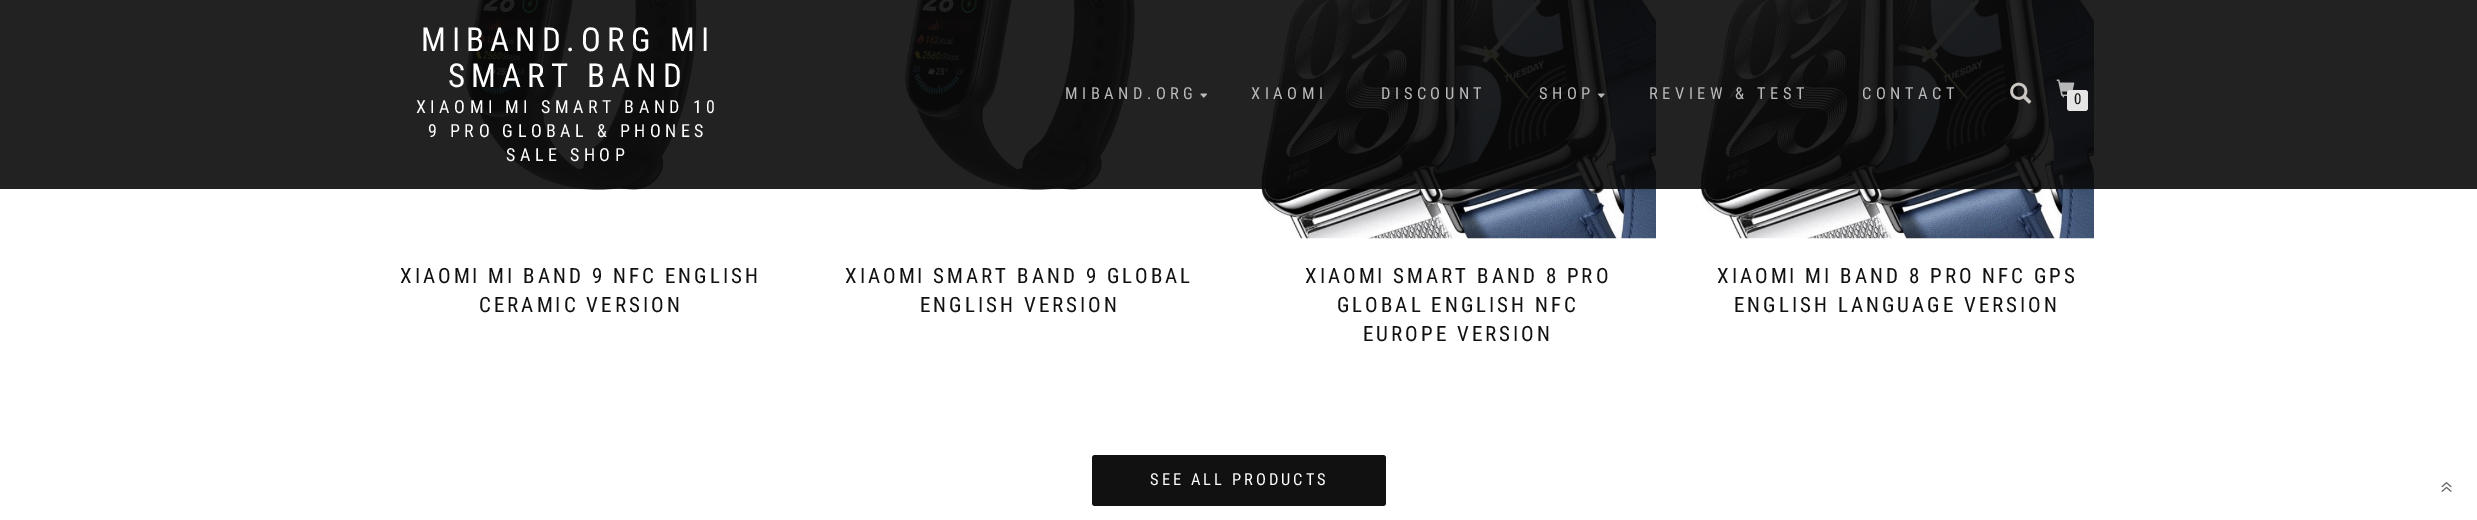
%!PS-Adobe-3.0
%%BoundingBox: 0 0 2477 520
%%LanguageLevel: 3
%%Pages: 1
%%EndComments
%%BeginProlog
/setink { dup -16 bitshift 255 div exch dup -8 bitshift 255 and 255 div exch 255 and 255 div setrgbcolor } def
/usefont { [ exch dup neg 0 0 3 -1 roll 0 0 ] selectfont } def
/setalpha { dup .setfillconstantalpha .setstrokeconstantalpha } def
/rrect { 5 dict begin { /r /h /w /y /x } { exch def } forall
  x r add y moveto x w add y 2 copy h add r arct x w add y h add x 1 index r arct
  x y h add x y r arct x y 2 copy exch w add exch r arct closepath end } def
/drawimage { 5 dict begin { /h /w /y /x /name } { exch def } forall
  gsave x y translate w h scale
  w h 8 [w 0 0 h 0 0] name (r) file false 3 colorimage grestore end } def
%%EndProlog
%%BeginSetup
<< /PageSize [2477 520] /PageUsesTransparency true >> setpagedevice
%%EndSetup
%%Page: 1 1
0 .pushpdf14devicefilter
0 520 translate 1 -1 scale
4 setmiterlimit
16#FFFFFF setink
0 0 2477 520 rectfill
(img5.raw) 465 0 232 190 drawimage
(img6.raw) 905 0 231 190 drawimage
(img7.raw) 1261 0 395 239 drawimage
(img8.raw) 1701 0 393 239 drawimage
0.9 setalpha
16#0A0A0A setink
0 0 2477 189 rectfill
/RobotoCondensed-Regular 33 usefont
1 setalpha
16#FFFFFF setink
421 51 moveto 6 0 (MIBAND.ORG MI) ashow
448 87 moveto 6 0 (SMART BAND) ashow
/RobotoCondensed-Regular 18 usefont
416 113 moveto 4.5 0 (XIAOMI MI SMART BAND 10) ashow
428 137 moveto 4.5 0 (9 PRO GLOBAL & PHONES) ashow
506 161 moveto 4.5 0 (SALE SHOP) ashow
/RobotoCondensed-Regular 16.5 usefont
16#BABABA setink
1065 99 moveto 4.5 0 (MIBAND.ORG) ashow
(img1.raw) 1200 93 7 5 drawimage
1251 99 moveto 4.5 0 (XIAOMI) ashow
1381 99 moveto 4.5 0 (DISCOUNT) ashow
1539 99 moveto 4.5 0 (SHOP) ashow
(img2.raw) 1597 93 8 5 drawimage
1649 99 moveto 4.5 0 (REVIEW & TEST) ashow
1862 99 moveto 4.5 0 (CONTACT) ashow
(img3.raw) 2010 82 22 22 drawimage
(img4.raw) 2056 79 19 19 drawimage
16#E5E5E5 setink
2067 90 21 21 3 rrect fill
/RobotoCondensed-Regular 15 usefont
16#111111 setink
2074 104 moveto (0) show
/RobotoCondensed-Regular 21 usefont
400 283 moveto 3 0 (XIAOMI MI BAND 9 NFC ENGLISH) ashow
479 312 moveto 3 0 (CERAMIC VERSION) ashow
845 283 moveto 3 0 (XIAOMI SMART BAND 9 GLOBAL) ashow
920 312 moveto 3 0 (ENGLISH VERSION) ashow
1305 283 moveto 3 0 (XIAOMI SMART BAND 8 PRO) ashow
1337 312 moveto 3 0 (GLOBAL ENGLISH NFC) ashow
1363 341 moveto 3 0 (EUROPE VERSION) ashow
1717 283 moveto 3 0 (XIAOMI MI BAND 8 PRO NFC GPS) ashow
1734 312 moveto 3 0 (ENGLISH LANGUAGE VERSION) ashow
1092 455 294 51 3 rrect fill
/RobotoCondensed-Regular 16.5 usefont
16#FFFFFF setink
1150 485 moveto 3 0 (SEE ALL PRODUCTS) ashow
(img9.raw) 2441 482 11 10 drawimage
.poppdf14devicefilter showpage
%%EOF
